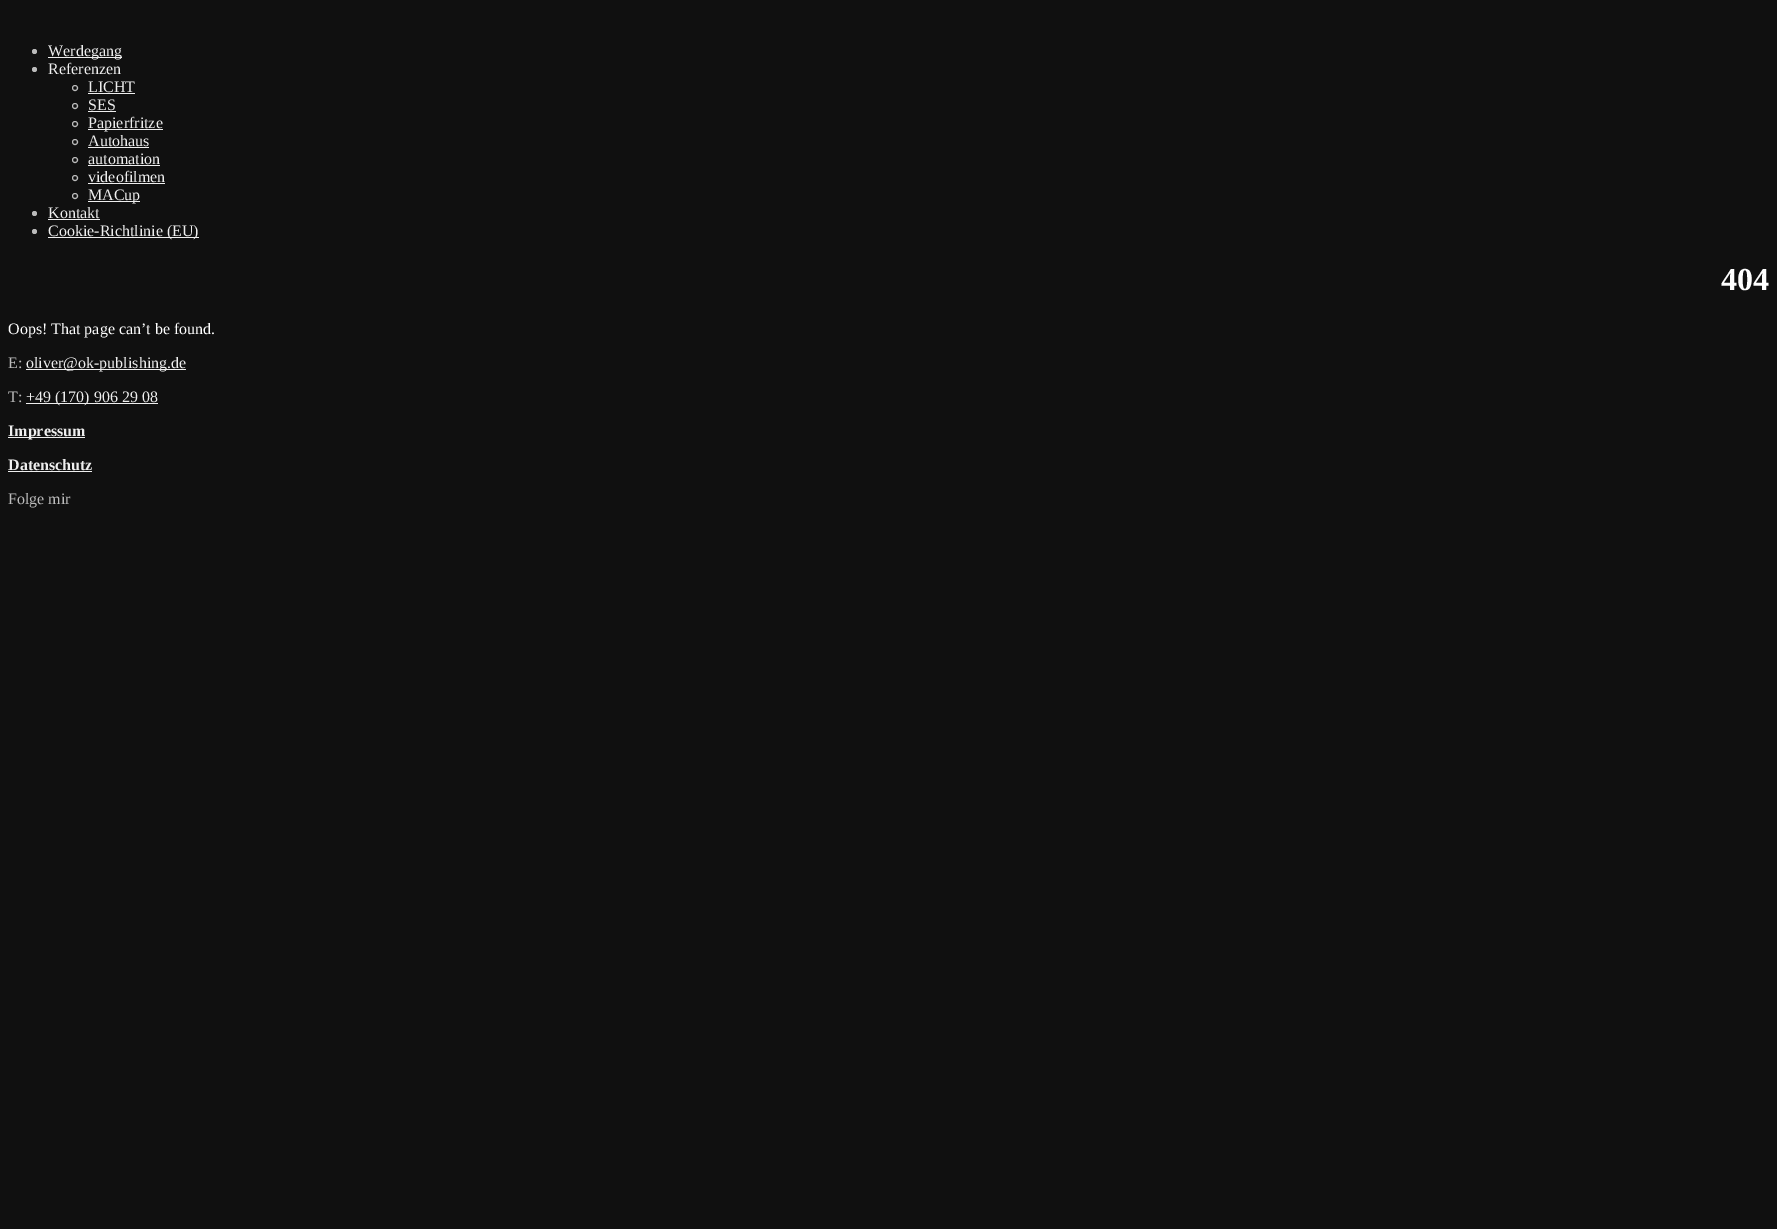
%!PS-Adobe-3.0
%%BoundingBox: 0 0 1777 1229
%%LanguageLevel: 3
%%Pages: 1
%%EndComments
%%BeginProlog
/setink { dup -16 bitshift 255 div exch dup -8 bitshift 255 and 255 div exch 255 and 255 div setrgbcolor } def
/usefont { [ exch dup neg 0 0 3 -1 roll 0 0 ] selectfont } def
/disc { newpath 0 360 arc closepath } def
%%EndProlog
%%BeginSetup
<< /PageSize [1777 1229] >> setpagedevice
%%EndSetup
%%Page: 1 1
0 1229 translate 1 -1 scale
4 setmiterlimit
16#101010 setink
0 0 1777 1229 rectfill
16#BBBBBB setink
34.5 51.5 2.5 disc fill
16#EEEEEE setink
48 57 74 1 rectfill
/LiberationSerif-Regular 16 usefont
48 56 moveto (Werdegang) show
16#BBBBBB setink
34.5 69.5 2.5 disc fill
16#EEEEEE setink
48 74 moveto (Referenzen) show
16#BBBBBB setink
75 88 2.5 disc stroke
16#EEEEEE setink
88 92 moveto (LICHT) show
88 93 47 1 rectfill
16#BBBBBB setink
75 106 2.5 disc stroke
16#EEEEEE setink
88 110 moveto (SES) show
88 111 28 1 rectfill
16#BBBBBB setink
75 124 2.5 disc stroke
16#EEEEEE setink
88 129 75 1 rectfill
88 128 moveto (Papierfritze) show
16#BBBBBB setink
75 142 2.5 disc stroke
16#EEEEEE setink
88 146 moveto (Autohaus) show
88 147 61 1 rectfill
16#BBBBBB setink
75 160 2.5 disc stroke
16#EEEEEE setink
88 164 moveto (automation) show
88 165 72 1 rectfill
16#BBBBBB setink
75 178 2.5 disc stroke
16#EEEEEE setink
88 182 moveto (videofilmen) show
88 183 77 1 rectfill
16#BBBBBB setink
75 196 2.5 disc stroke
16#EEEEEE setink
88 201 52 1 rectfill
88 200 moveto (MACup) show
16#BBBBBB setink
34.5 213.5 2.5 disc fill
16#EEEEEE setink
48 218 moveto (Kontakt) show
48 219 52 1 rectfill
16#BBBBBB setink
34.5 231.5 2.5 disc fill
16#EEEEEE setink
48 237 151 1 rectfill
48 236 moveto (Cookie-Richtlinie \(EU\)) show
/LiberationSerif-Bold 32 usefont
16#FFFFFF setink
1721 290 moveto (404) show
/LiberationSerif-Regular 16 usefont
8 334 moveto (Oops! That page can’t be found.) show
16#BBBBBB setink
8 368 moveto (E:) show
16#EEEEEE setink
26 369 160 1 rectfill
26 368 moveto (oliver@ok-publishing.de) show
16#BBBBBB setink
8 402 moveto (T:) show
16#EEEEEE setink
26 403 132 1 rectfill
26 402 moveto (+49 \(170\) 906 29 08) show
8 437 77 1 rectfill
/LiberationSerif-Bold 16 usefont
8 436 moveto (Impressum) show
8 470 moveto (Datenschutz) show
8 471 84 1 rectfill
/LiberationSerif-Regular 16 usefont
16#BBBBBB setink
8 504 moveto (Folge mir) show
showpage
%%EOF
